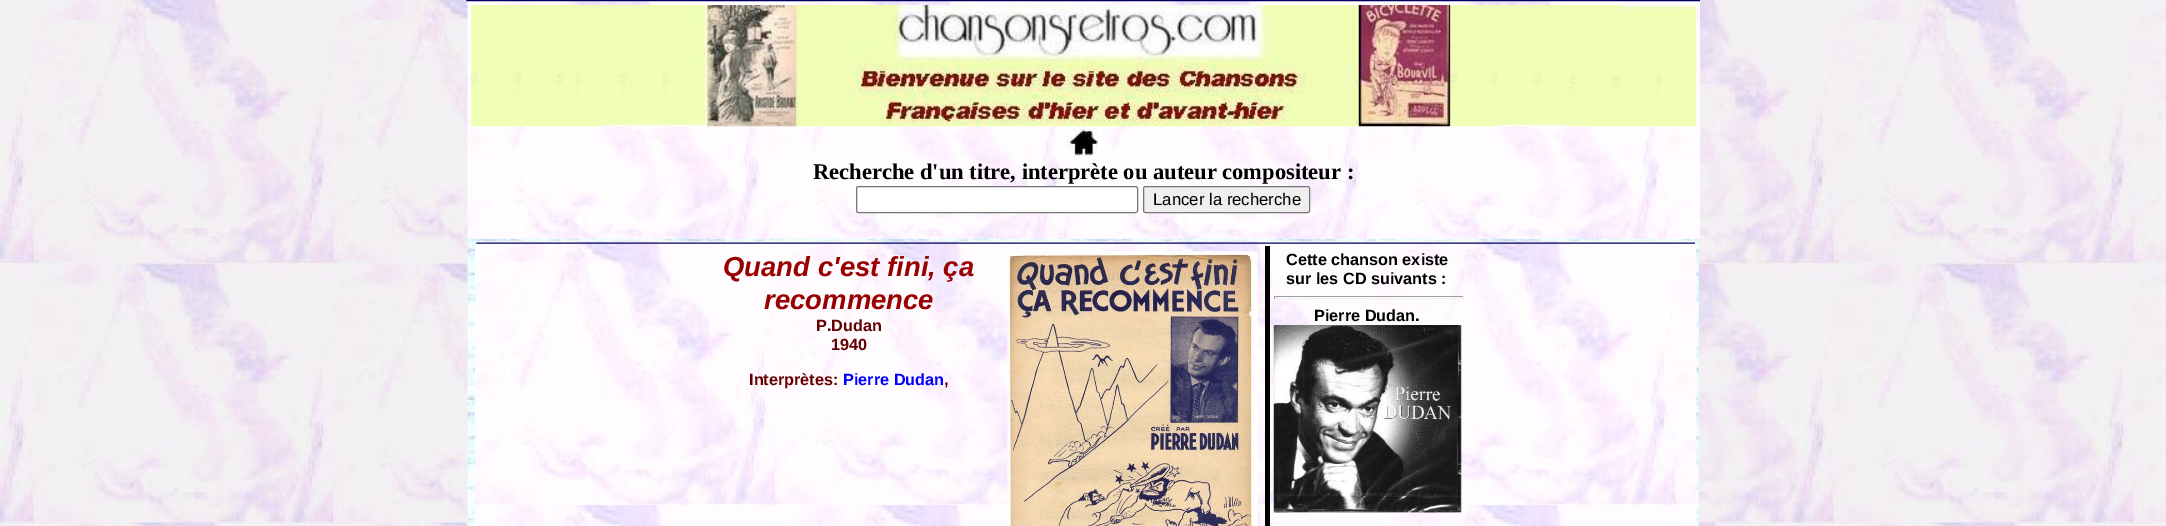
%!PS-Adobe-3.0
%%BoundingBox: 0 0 2166 526
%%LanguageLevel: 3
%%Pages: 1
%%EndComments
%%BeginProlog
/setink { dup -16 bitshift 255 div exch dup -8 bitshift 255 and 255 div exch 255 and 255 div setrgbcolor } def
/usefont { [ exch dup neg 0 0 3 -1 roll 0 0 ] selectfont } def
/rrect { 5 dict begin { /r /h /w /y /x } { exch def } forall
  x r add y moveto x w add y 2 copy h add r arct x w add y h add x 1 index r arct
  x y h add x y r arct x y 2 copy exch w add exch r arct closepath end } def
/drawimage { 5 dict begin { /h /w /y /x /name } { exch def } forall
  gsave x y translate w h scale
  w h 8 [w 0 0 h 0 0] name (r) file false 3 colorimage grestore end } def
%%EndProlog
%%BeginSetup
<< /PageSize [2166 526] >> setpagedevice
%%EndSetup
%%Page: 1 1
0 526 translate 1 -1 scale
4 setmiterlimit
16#FFFFFF setink
0 0 2166 526 rectfill
(img1.raw) 0 0 2166 526 drawimage
(img3.raw) 467 1 1233 238 drawimage
(img2.raw) 466 0 1234 2 drawimage
(img4.raw) 471 5 1226 122 drawimage
(img5.raw) 1067 126 33 31 drawimage
/LiberationSerif-Bold 22.5 usefont
16#000000 setink
813 179 moveto (Recherche d'un titre, interprète ou auteur compositeur :) show
16#FFFFFF setink
856.5 186.5 281 26 2 rrect gsave fill grestore
16#767676 setink
stroke
16#EFEFEF setink
1143.5 186.5 166 26 2 rrect gsave fill grestore
16#767676 setink
stroke
/LiberationSans-Regular 16.75 usefont
16#000000 setink
1153 205 moveto (Lancer la recherche) show
(img6.raw) 467 238 1232 288 drawimage
(img7.raw) 475 241 1222 285 drawimage
(img8.raw) 476 242 1219 2 drawimage
/LiberationSans-BoldItalic 27.5 usefont
16#990000 setink
723 276 moveto (Quand c'est fini, ça) show
764 309 moveto (recommence) show
/LiberationSans-Bold 16.25 usefont
16#660000 setink
[
    [(P.Dudan) 816 331]
    [(1940) 831 350]
    [(Interprètes:) 749 385]
] { aload pop moveto show } forall
16#0000FF setink
843 385 moveto (Pierre Dudan) show
16#660000 setink
944 385 moveto (,) show
(img9.raw) 1007 251 251 275 drawimage
16#000000 setink
1265 246 5 280 rectfill
(img10.raw) 1408 247 34 2 drawimage
1286 265 moveto (Cette chanson existe) show
1286 284 moveto (sur les CD suivants :) show
[
    [1274 296 190 1 16#9F9F9F]
    [1463 296 1 3 16#EEEEEE]
    [1274 298 190 1 16#EEEEEE]
    [1274 296 1 3 16#9F9F9F]
] { aload pop setink rectfill } forall
16#000000 setink
1314 321 moveto (Pierre Dudan.) show
(img11.raw) 1273 325 189 188 drawimage
showpage
%%EOF
